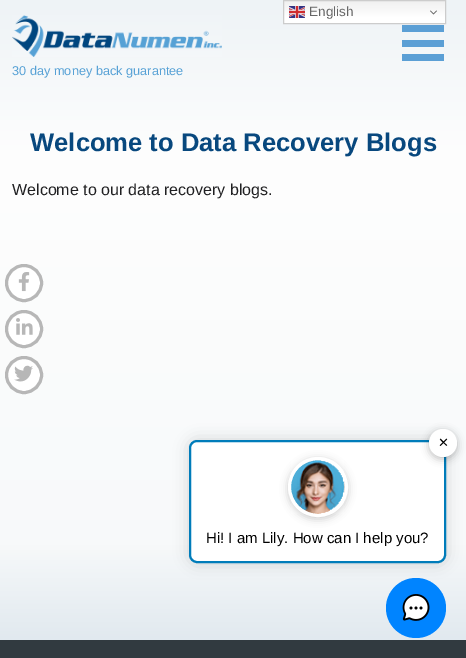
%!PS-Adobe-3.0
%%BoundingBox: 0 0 466 658
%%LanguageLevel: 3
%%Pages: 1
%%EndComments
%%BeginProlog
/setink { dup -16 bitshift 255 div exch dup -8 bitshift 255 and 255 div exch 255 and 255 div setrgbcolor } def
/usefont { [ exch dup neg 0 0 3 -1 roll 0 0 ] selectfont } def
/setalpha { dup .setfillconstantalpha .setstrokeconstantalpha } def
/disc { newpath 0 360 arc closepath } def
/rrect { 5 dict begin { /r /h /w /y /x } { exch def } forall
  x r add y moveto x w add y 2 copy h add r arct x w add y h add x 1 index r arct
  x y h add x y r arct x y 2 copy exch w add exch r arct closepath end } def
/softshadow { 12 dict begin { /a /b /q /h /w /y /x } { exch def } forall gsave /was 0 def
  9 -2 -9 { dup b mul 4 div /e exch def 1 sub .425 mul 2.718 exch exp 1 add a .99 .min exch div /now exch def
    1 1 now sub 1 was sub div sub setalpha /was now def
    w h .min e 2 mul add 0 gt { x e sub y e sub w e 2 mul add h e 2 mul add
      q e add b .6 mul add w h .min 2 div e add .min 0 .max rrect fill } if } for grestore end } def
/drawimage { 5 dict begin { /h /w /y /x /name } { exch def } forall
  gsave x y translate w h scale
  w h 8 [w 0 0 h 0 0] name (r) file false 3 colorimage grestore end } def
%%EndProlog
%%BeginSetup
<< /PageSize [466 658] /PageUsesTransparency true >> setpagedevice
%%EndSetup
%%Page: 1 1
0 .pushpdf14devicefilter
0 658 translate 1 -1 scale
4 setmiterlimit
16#FFFFFF setink
0 0 466 658 rectfill
gsave 0 0 moveto 466 0 lineto 466 640 lineto 0 640 lineto closepath clip newpath
<< /ShadingType 2 /ColorSpace /DeviceRGB /Coords [233 0 233 640] /Extend [true true] /Function << /FunctionType 3 /Domain [0 1] /Functions [<< /FunctionType 2 /Domain [0 1] /C0 [0.933 0.953 0.965] /C1 [0.996 0.996 0.996] /N 1 >> << /FunctionType 2 /Domain [0 1] /C0 [0.996 0.996 0.996] /C1 [0.969 0.976 0.98] /N 1 >> << /FunctionType 2 /Domain [0 1] /C0 [0.969 0.976 0.98] /C1 [0.882 0.914 0.937] /N 1 >>] /Bounds [0.25 0.85] /Encode [0 1 0 1 0 1] >> >> shfill grestore
gsave 284 1 moveto 445 1 lineto 445 23 lineto 284 23 lineto closepath clip newpath
<< /ShadingType 2 /ColorSpace /DeviceRGB /Coords [365 0 365 24] /Extend [true true] /Function << /FunctionType 3 /Domain [0 1] /Functions [<< /FunctionType 2 /Domain [0 1] /C0 [0.937 0.937 0.937] /C1 [1 1 1] /N 1 >> << /FunctionType 2 /Domain [0 1] /C0 [1 1 1] /C1 [1 1 1] /N 1 >>] /Bounds [0.7] /Encode [0 1 0 1] >> >> shfill grestore
16#CCCCCC setink
283.5 0.5 162 23 rectstroke
(img1.raw) 289 6 16 12 drawimage
/LiberationSans-Regular 13.5 usefont
16#666666 setink
309 16 moveto (English) show
(img2.raw) 430 10 7 5 drawimage
[
    [402 25 42 7 16#5B9FD5]
    [402 54 42 7 16#5B9FD5]
    [402 40 42 7 16#5B9FD5]
] { aload pop setink rectfill } forall
(img3.raw) 12 15 210 42 drawimage
/LiberationSans-Regular 12.75 usefont
16#56A1D5 setink
12 75 moveto (30 day money back guarantee) show
/LiberationSans-Bold 25.6 usefont
16#08487E setink
30 151 moveto (Welcome to Data Recovery Blogs) show
/LiberationSans-Regular 16 usefont
16#202022 setink
12 195 moveto (Welcome to our data recovery blogs.) show
16#FFFFFF setink
24 283 17.5 disc gsave fill grestore
16#B7B7B7 setink
3 setlinewidth
stroke
(img4.raw) 18 272 12 20 drawimage
16#FFFFFF setink
24 329 17.5 disc gsave fill grestore
16#B7B7B7 setink
stroke
(img5.raw) 16 318 17 17 drawimage
16#FFFFFF setink
24 375 17.5 disc gsave fill grestore
16#B7B7B7 setink
stroke
(img6.raw) 14 365 19 17 drawimage
16#0084FF setink
416 608 30 disc fill
16#000000 setink
189 440 257 123 8 7.5 0.15 softshadow
16#FFFFFF setink
190 441 255 121 7 rrect gsave fill grestore
16#007CBA setink
2 setlinewidth
stroke
16#000000 setink
429 431 28 28 14 4 0.25 softshadow
16#FFFFFF setink
443 443 14 disc fill
/DejaVuSans-Regular 13 usefont
16#000000 setink
438 447 moveto (✕) show
288 459 60 60 30 4 0.2 softshadow
(img7.raw) 291 460 53 54 drawimage
16#FFFFFF setink
3 setlinewidth
318 487 28.5 disc stroke
/LiberationSans-Regular 15 usefont
16#000000 setink
206 543 moveto (Hi! I am Lily. How can I help you?) show
(img8.raw) 402 594 28 27 drawimage
16#313A40 setink
0 640 466 18 rectfill
.poppdf14devicefilter showpage
%%EOF
